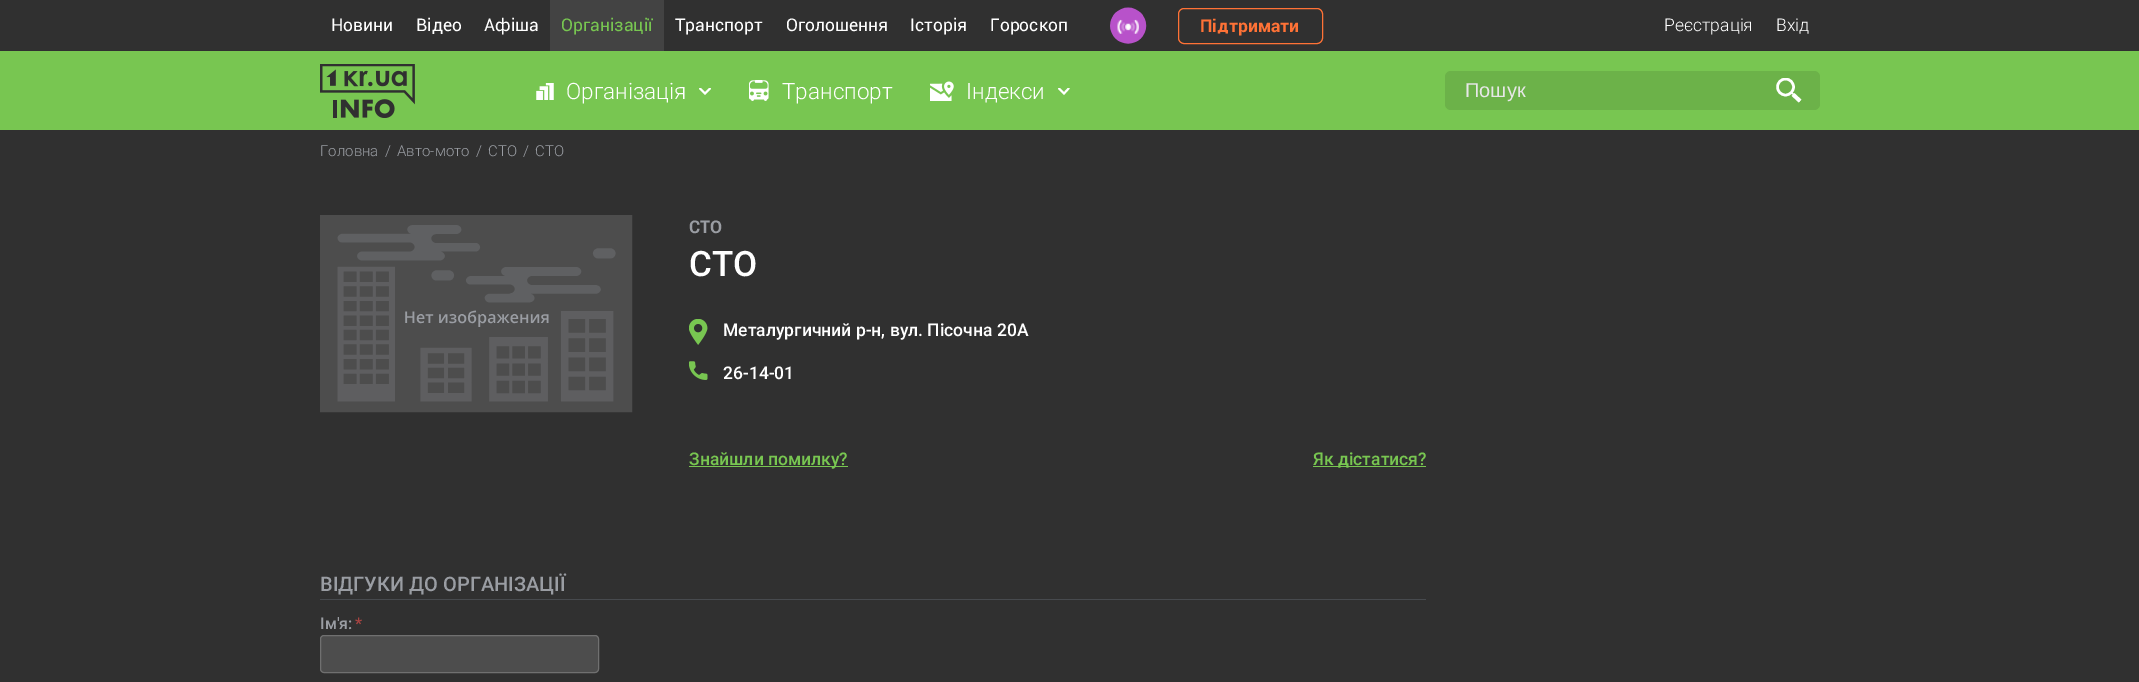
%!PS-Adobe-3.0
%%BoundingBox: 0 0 2139 682
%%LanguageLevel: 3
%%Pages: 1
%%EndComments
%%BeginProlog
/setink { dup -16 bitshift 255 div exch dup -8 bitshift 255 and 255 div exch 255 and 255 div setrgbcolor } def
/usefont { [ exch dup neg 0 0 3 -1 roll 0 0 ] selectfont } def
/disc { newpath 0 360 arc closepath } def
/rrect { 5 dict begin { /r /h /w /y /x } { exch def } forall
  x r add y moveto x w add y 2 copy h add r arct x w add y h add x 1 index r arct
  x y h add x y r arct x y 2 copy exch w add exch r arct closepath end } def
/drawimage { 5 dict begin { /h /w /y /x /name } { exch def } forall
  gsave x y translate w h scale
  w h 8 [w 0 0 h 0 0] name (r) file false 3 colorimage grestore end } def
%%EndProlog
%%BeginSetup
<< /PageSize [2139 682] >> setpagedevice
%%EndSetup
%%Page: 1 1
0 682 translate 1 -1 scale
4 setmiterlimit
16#303030 setink
0 0 2139 682 rectfill
/Roboto-Regular 17.5 usefont
16#FFFFFF setink
[
    [(Новини) 331 31]
    [(Відео) 416 31]
    [(Афіша) 484 31]
] { aload pop moveto show } forall
16#434343 setink
550 0 114 51 rectfill
16#78C651 setink
561 31 moveto (Організації) show
16#FFFFFF setink
[
    [(Транспорт) 675 31]
    [(Оголошення) 786 31]
    [(Історія) 910 31]
    [(Гороскоп) 990 31]
] { aload pop moveto show } forall
(img1.raw) 1110 7 37 37 drawimage
16#FF7236 setink
1178.5 8.5 144 35 5.5 rrect stroke
/Roboto-Bold 17.5 usefont
1200 32 moveto (Підтримати) show
/Roboto-Light 17.5 usefont
16#FFFFFF setink
1664 31 moveto (Реєстрація) show
1776 31 moveto (Вхід) show
16#78C651 setink
0 51 2139 79 rectfill
(img2.raw) 320 64 95 54 drawimage
(img3.raw) 536 83 18 17 drawimage
/Roboto-Light 22.5 usefont
16#FFFFFF setink
566 99 moveto (Організація) show
gsave
699 88 12 7 rectclip
1.9 setlinewidth
699.5 88 moveto 705 93.5 lineto 710.5 88 lineto stroke
grestore
(img4.raw) 749 80 20 21 drawimage
782 99 moveto (Транспорт) show
(img5.raw) 930 81 24 20 drawimage
966 99 moveto (Індекси) show
gsave
1058 88 12 7 rectclip
1.9 setlinewidth
1058.5 88 moveto 1064 93.5 lineto 1069 88 lineto stroke
grestore
16#6CB249 setink
1445 71 375 39 6 rrect fill
/LiberationSans-Regular 20 usefont
16#E7E7E7 setink
1465 97 moveto (Пошук) show
gsave
1776 78 25 25 rectclip
16#FFFFFF setink
2.5 setlinewidth
1785.5 87 8 disc stroke
grestore
16#FFFFFF setink
1.3 setlinewidth
1791.5 92.5 moveto 1800 101 lineto stroke
3.8 setlinewidth
1793 94.5 moveto 1800 101 lineto stroke
/Roboto-Light 15 usefont
16#9A9DA3 setink
[
    [(Головна) 320 156]
    [(/) 385 156]
    [(Авто-мото) 397 156]
    [(/) 476 156]
    [(СТО) 488 156]
    [(/) 523 156]
    [(СТО) 535 156]
] { aload pop moveto show } forall
(img6.raw) 320 215 313 198 drawimage
/Roboto-Bold 17.5 usefont
689 233 moveto (СТО) show
/Roboto-Medium 35 usefont
16#FFFFFF setink
689 276 moveto (СТО) show
(img7.raw) 689 319 19 26 drawimage
/Roboto-Medium 17.5 usefont
723 336 moveto (Металургичний р-н, вул. Пісочна 20А) show
(img8.raw) 689 361 19 19 drawimage
723 379 moveto (26-14-01) show
16#78C651 setink
689 466 159 1 rectfill
689 465 moveto (Знайшли помилку?) show
1313 466 113 1 rectfill
1313 465 moveto (Як дістатися?) show
16#474A4E setink
320 599 1106 1 rectfill
/Roboto-Medium 20 usefont
16#9A9DA3 setink
320 591 moveto (ВІДГУКИ ДО ОРГАНІЗАЦІЇ) show
/Roboto-Medium 16 usefont
320 629 moveto (Ім'я:) show
16#A94442 setink
355 629 moveto (*) show
16#4D4D4D setink
320.5 635.5 278 37 3.5 rrect gsave fill grestore
16#707070 setink
1 setlinewidth
stroke
showpage
%%EOF
